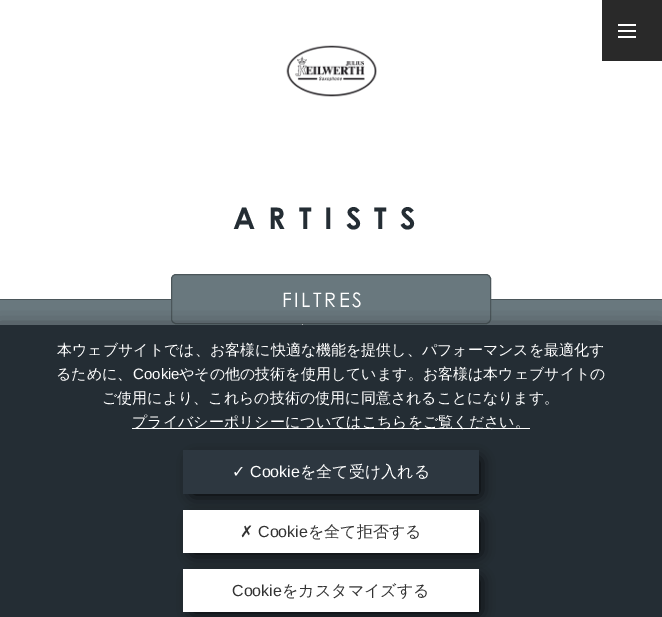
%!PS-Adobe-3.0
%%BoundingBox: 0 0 662 617
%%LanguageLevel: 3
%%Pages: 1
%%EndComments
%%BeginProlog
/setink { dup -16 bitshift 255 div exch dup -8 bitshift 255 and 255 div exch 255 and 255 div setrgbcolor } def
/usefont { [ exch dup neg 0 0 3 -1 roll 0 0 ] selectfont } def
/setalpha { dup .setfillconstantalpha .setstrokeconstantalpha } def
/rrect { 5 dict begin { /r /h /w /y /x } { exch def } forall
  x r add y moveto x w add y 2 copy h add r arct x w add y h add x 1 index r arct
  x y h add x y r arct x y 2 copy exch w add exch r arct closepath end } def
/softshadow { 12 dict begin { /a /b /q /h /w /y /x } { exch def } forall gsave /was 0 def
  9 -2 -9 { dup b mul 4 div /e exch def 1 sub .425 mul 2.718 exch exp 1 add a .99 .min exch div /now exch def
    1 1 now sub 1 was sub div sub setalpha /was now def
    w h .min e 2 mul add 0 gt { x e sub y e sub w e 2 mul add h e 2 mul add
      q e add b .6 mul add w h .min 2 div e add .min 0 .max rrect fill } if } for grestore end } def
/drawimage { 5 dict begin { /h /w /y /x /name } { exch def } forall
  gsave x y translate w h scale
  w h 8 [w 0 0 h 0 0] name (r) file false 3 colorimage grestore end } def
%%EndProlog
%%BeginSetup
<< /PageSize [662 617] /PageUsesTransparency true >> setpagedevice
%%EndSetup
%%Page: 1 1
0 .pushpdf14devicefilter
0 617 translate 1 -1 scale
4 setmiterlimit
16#FFFFFF setink
0 0 662 617 rectfill
[
    [602 0 60 61 16#292929]
    [618 24 18 2 16#FFFFFF]
    [618 36 18 2 16#FFFFFF]
    [618 30 18 2 16#FFFFFF]
] { aload pop setink rectfill } forall
(img1.raw) 286 45 91 52 drawimage
/CenturyGothic-Bold 30 usefont
16#242D34 setink
233 229 moveto 13 0 (ARTISTS) ashow
[
    [0 299 662 1 16#4B565A]
    [0 300 662 25 16#69787E]
    [302 319 1 6 16#FFFFFF]
] { aload pop setink rectfill } forall
16#69787E setink
171.5 274.5 319 49 4.5 rrect gsave fill grestore
16#4B565A setink
stroke
/CenturyGothic-Regular 20 usefont
16#FFFFFF setink
282 307 moveto 2.5 0 (FILTRES) ashow
16#000000 setink
-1 333 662 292 0 10 1 softshadow
16#242D34 setink
0 325 662 292 rectfill
/WenQuanYiZenHei-Medium 15 usefont
16#FFFFFF setink
57 355 moveto (本ウェブサイトでは、お客様に快適な機能を提供し、パフォーマンスを最適化す) show
56 379 moveto (るために、) show
/LiberationSans-Regular 15 usefont
133 379 moveto (Cookie) show
/WenQuanYiZenHei-Medium 15 usefont
179 379 moveto (やその他の技術を使用しています。お客様は本ウェブサイトの) show
102 403 moveto (ご使用により、これらの技術の使用に同意されることになります。) show
132 428 398 1 rectfill
132 427 moveto (プライバシーポリシーについてはこちらをご覧ください。) show
16#000000 setink
193 460 286 34 0 7.5 1 softshadow
16#2D3740 setink
183 450 296 44 rectfill
/DejaVuSans-Regular 16 usefont
16#FFFFFF setink
232 477 moveto (✓) show
/LiberationSans-Regular 16 usefont
250 477 moveto (Cookie) show
/WenQuanYiZenHei-Medium 16 usefont
300 477 moveto (を全て受け入れる) show
16#000000 setink
193 520 286 33 0 7.5 1 softshadow
16#FFFFFF setink
183 510 296 43 rectfill
/DejaVuSans-Regular 16 usefont
16#333333 setink
240 537 moveto (✗) show
/LiberationSans-Regular 16 usefont
258 537 moveto (Cookie) show
/WenQuanYiZenHei-Medium 16 usefont
308 537 moveto (を全て拒否する) show
16#000000 setink
193 579 286 33 0 7.5 1 softshadow
16#FFFFFF setink
183 569 296 43 rectfill
/LiberationSans-Regular 16 usefont
16#333333 setink
232 596 moveto (Cookie) show
/WenQuanYiZenHei-Medium 16 usefont
282 596 moveto (をカスタマイズする) show
.poppdf14devicefilter showpage
%%EOF
